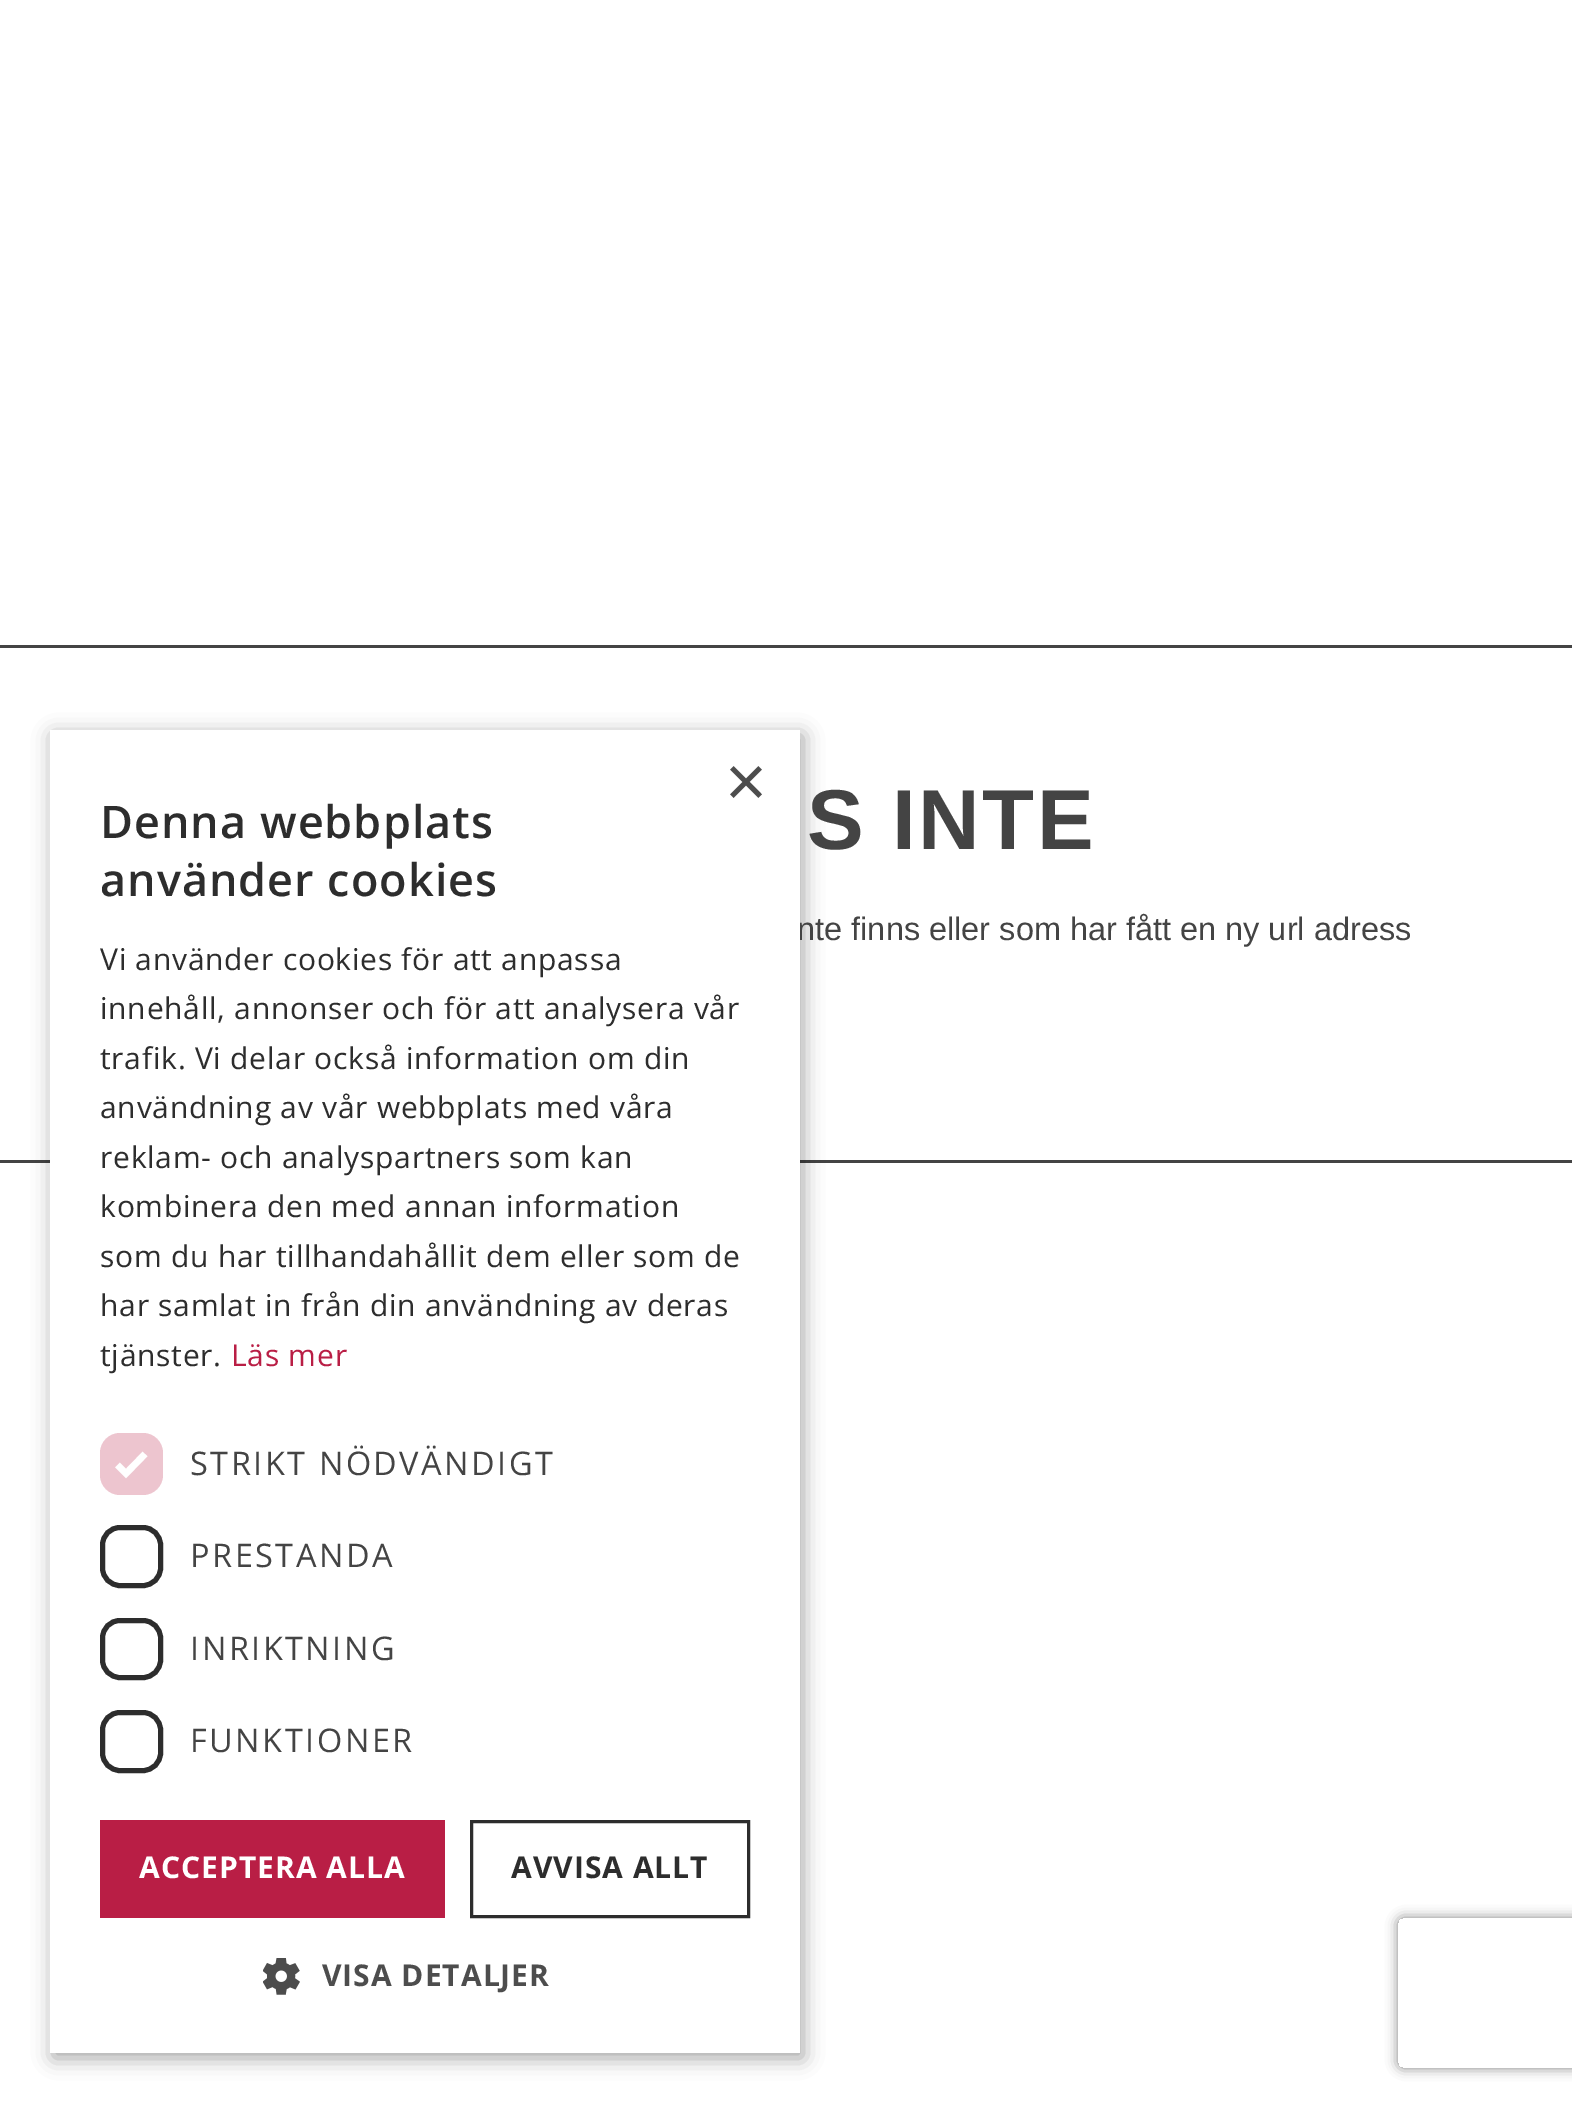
%!PS-Adobe-3.0
%%BoundingBox: 0 0 1572 2102
%%LanguageLevel: 3
%%Pages: 1
%%EndComments
%%BeginProlog
/setink { dup -16 bitshift 255 div exch dup -8 bitshift 255 and 255 div exch 255 and 255 div setrgbcolor } def
/usefont { [ exch dup neg 0 0 3 -1 roll 0 0 ] selectfont } def
/setalpha { dup .setfillconstantalpha .setstrokeconstantalpha } def
/rrect { 5 dict begin { /r /h /w /y /x } { exch def } forall
  x r add y moveto x w add y 2 copy h add r arct x w add y h add x 1 index r arct
  x y h add x y r arct x y 2 copy exch w add exch r arct closepath end } def
/softshadow { 12 dict begin { /a /b /q /h /w /y /x } { exch def } forall gsave /was 0 def
  9 -2 -9 { dup b mul 4 div /e exch def 1 sub .425 mul 2.718 exch exp 1 add a .99 .min exch div /now exch def
    1 1 now sub 1 was sub div sub setalpha /was now def
    w h .min e 2 mul add 0 gt { x e sub y e sub w e 2 mul add h e 2 mul add
      q e add b .6 mul add w h .min 2 div e add .min 0 .max rrect fill } if } for grestore end } def
/drawimage { 5 dict begin { /h /w /y /x /name } { exch def } forall
  gsave x y translate w h scale
  w h 8 [w 0 0 h 0 0] name (r) file false 3 colorimage grestore end } def
%%EndProlog
%%BeginSetup
<< /PageSize [1572 2102] /PageUsesTransparency true >> setpagedevice
%%EndSetup
%%Page: 1 1
0 .pushpdf14devicefilter
0 2102 translate 1 -1 scale
4 setmiterlimit
16#FFFFFF setink
0 0 1572 2102 rectfill
16#444444 setink
0 1160 1572 3 rectfill
16#000000 setink
53 735 750 1323 0 10 0.35 softshadow
/LiberationSans-Regular 32.5 usefont
16#444444 setink
797 940 moveto (nte finns eller som har fått en ny url adress) show
16#FFFFFF setink
50 730 750 1323 rectfill
/LiberationSans-Regular 72 usefont
16#4D4D4D setink
725 806 moveto (×) show
/OpenSans-SemiBold 45 usefont
16#2D2D2D setink
100 838 moveto 1 0 (Denna webbplats) ashow
100 896 moveto 1 0 (använder cookies) ashow
/OpenSans-Regular 30 usefont
100 970 moveto 0.75 0 (Vi använder cookies för att anpassa) ashow
100 1019 moveto 0.75 0 (innehåll, annonser och för att analysera vår) ashow
100 1069 moveto 0.75 0 (trafik. Vi delar också information om din) ashow
100 1118 moveto 0.75 0 (användning av vår webbplats med våra) ashow
100 1168 moveto 0.75 0 (reklam- och analyspartners som kan) ashow
100 1217 moveto 0.75 0 (kombinera den med annan information) ashow
100 1267 moveto 0.75 0 (som du har tillhandahållit dem eller som de) ashow
100 1316 moveto 0.75 0 (har samlat in från din användning av deras) ashow
100 1366 moveto 0.75 0 (tjänster.) ashow
16#B91E45 setink
231 1366 moveto 0.75 0 (Läs mer) ashow
16#EDC5CF setink
100 1433 63 62 20 rrect fill
16#FFFFFF setink
6.6 setlinewidth
117.5 1465 moveto 126 1473.5 lineto 145 1454 lineto stroke
/OpenSans-Regular 32.5 usefont
16#444444 setink
190 1475 moveto 2.5 0 (STRIKT NÖDVÄNDIGT) ashow
16#2D2D2D setink
5 setlinewidth
102.5 1527.5 58 58 17.5 rrect stroke
16#444444 setink
190 1567 moveto 2.5 0 (PRESTANDA) ashow
16#2D2D2D setink
102.5 1620.5 58 57 17.5 rrect stroke
16#444444 setink
190 1660 moveto 2.5 0 (INRIKTNING) ashow
16#2D2D2D setink
102.5 1712.5 58 58 17.5 rrect stroke
16#444444 setink
190 1752 moveto 2.5 0 (FUNKTIONER) ashow
16#B91E45 setink
100 1820 345 98 rectfill
/OpenSans-Bold 30 usefont
16#FFFFFF setink
139 1878 moveto 1 0 (ACCEPTERA ALLA) ashow
16#2D2D2D setink
3 setlinewidth
471.5 1821.5 277 95 rectstroke
511 1878 moveto 1 0 (AVVISA ALLT) ashow
(img1.raw) 263 1958 37 37 drawimage
16#4D4D4D setink
322 1986 moveto 1 0 (VISA DETALJER) ashow
16#444444 setink
0 645 1572 3 rectfill
/LiberationSans-Bold 85 usefont
807 849 moveto 2.5 0 (S INTE) ashow
gsave
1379 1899 moveto 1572 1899 lineto 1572 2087 lineto 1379 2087 lineto closepath 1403 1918 moveto 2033 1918 lineto 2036 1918 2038 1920 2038 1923 curveto 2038 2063 lineto 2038 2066 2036 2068 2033 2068 curveto 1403 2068 lineto 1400 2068 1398 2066 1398 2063 curveto 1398 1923 lineto 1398 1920 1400 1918 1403 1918 curveto closepath eoclip newpath
16#808080 setink
1398 1918 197 150 5 6 1 softshadow
grestore
.poppdf14devicefilter showpage
%%EOF
